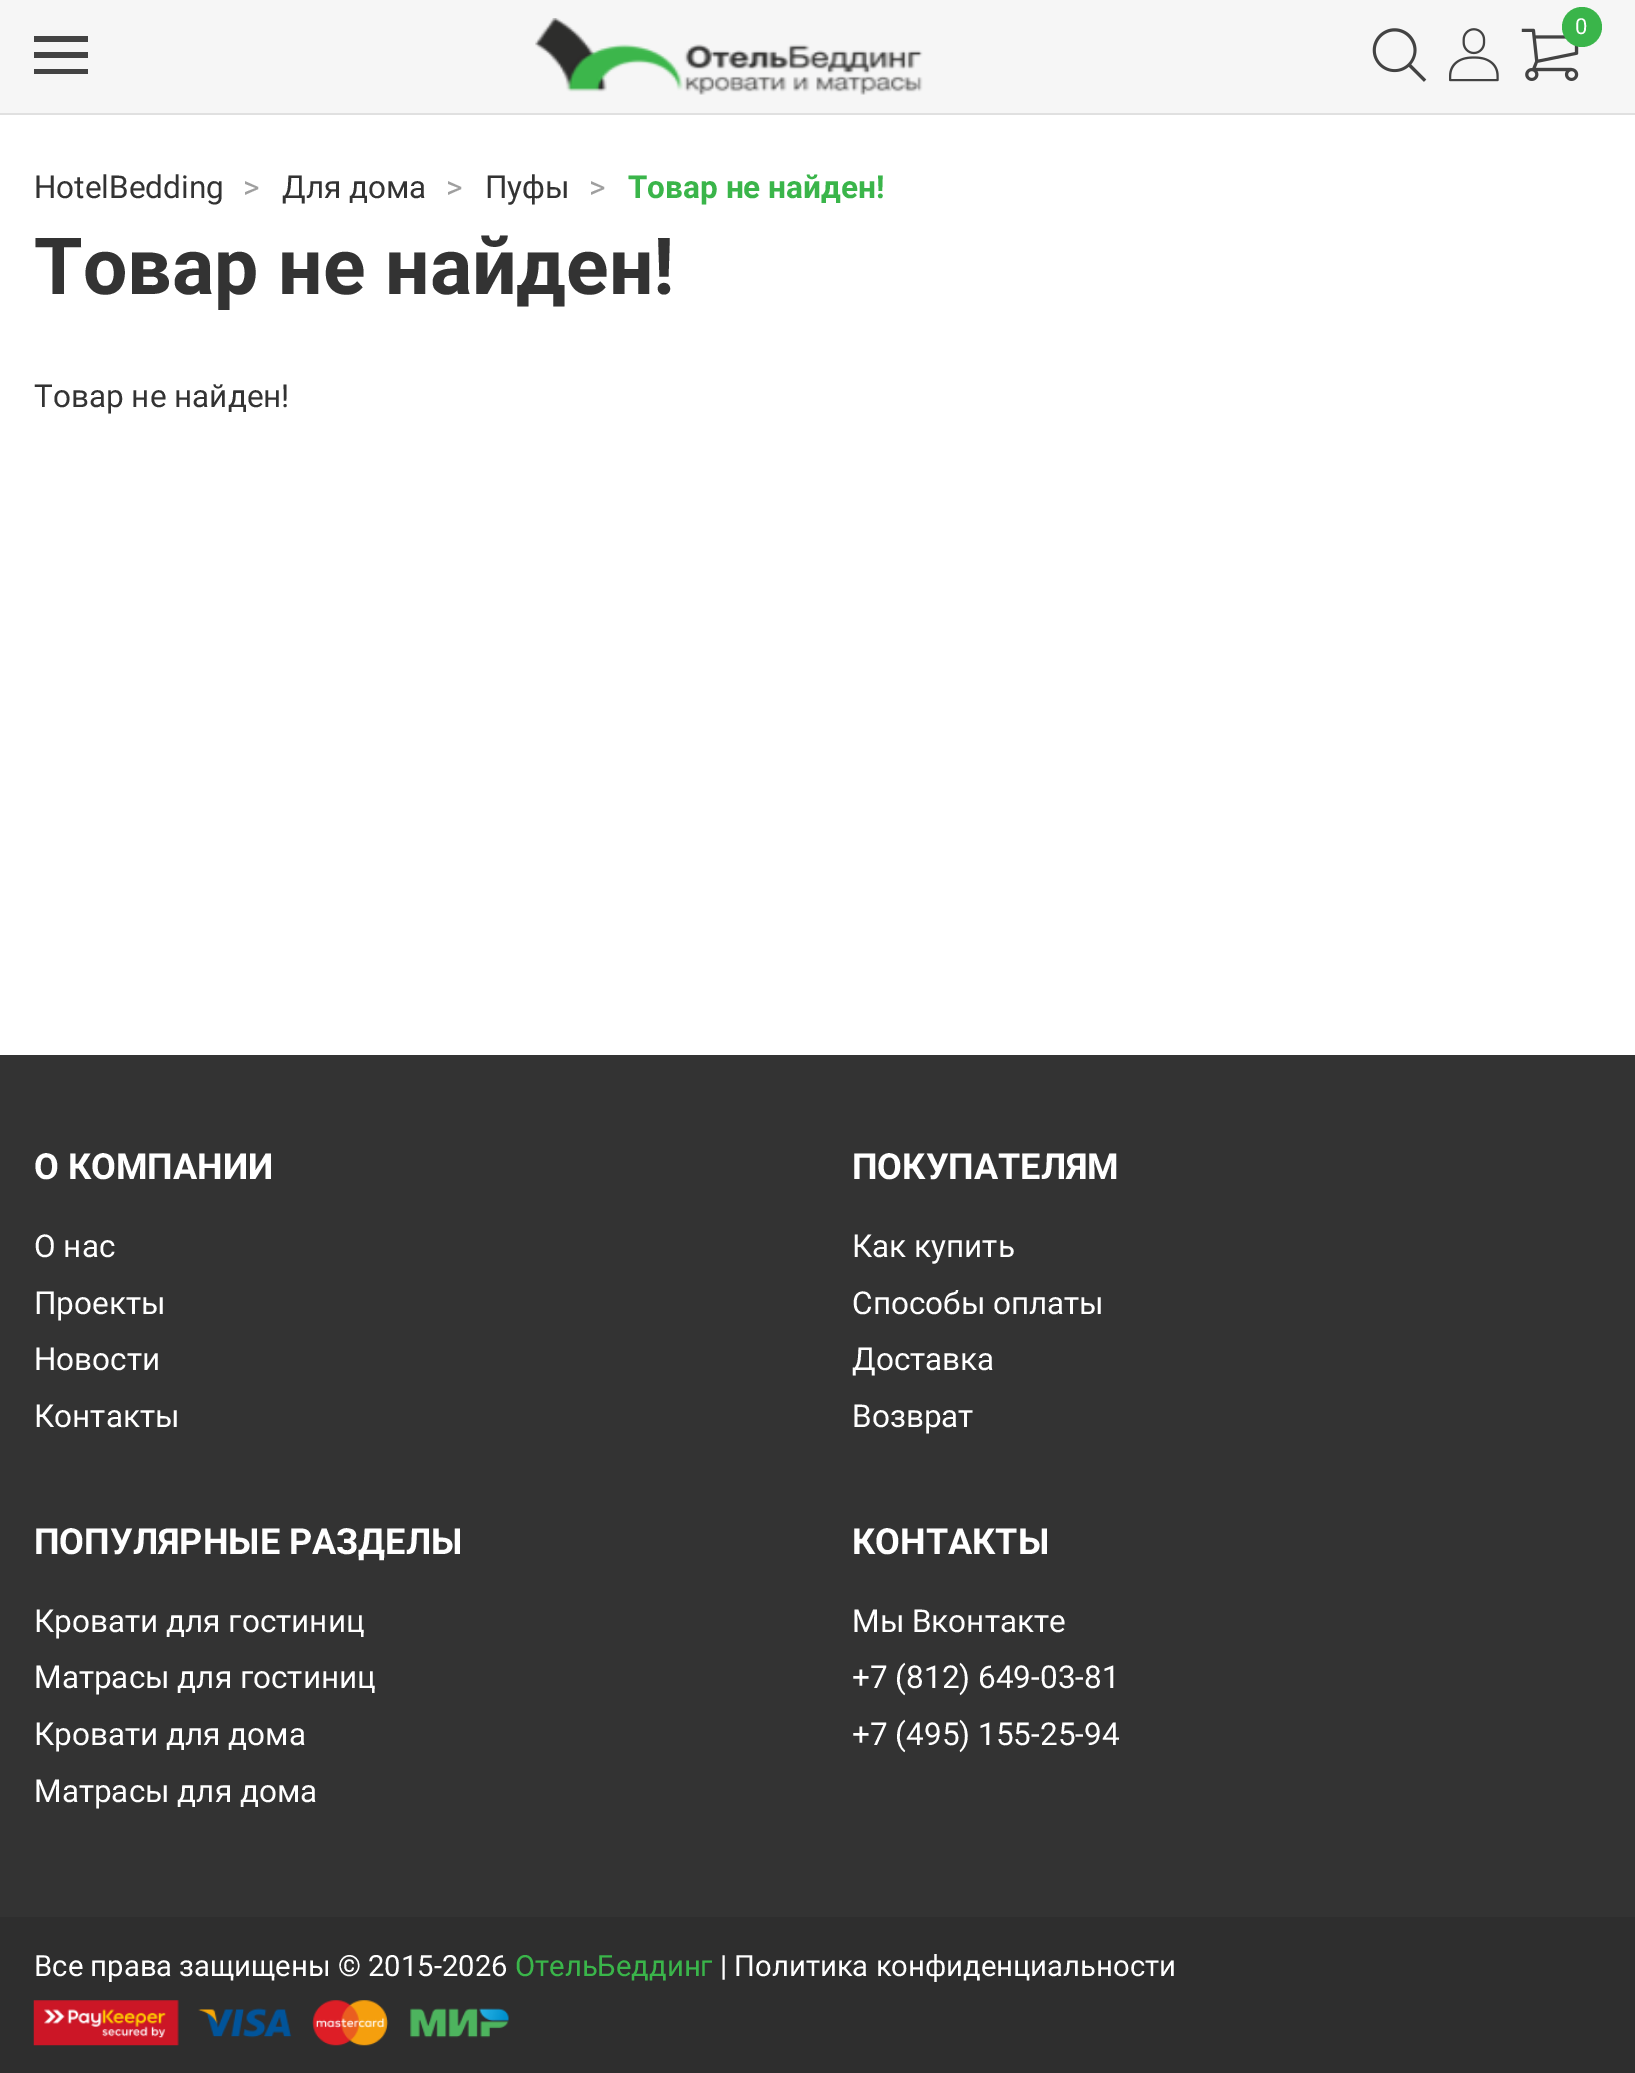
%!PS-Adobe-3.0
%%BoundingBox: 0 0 1635 2073
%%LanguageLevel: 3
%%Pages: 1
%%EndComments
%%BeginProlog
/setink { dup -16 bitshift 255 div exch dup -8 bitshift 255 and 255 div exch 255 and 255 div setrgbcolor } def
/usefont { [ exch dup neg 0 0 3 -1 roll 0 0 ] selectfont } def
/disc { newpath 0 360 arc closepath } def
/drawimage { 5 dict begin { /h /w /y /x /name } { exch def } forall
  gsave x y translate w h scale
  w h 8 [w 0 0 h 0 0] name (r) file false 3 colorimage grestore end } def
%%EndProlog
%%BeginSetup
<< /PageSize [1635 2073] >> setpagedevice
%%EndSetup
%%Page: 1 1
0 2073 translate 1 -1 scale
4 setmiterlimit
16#FFFFFF setink
0 0 1635 2073 rectfill
16#F6F6F6 setink
0 0 1635 113 rectfill
16#E0E0E0 setink
0 113 1635 2 rectfill
16#434343 setink
34 36 moveto 88 36 lineto 88 42 lineto 34 42 lineto closepath 34 52 moveto 88 52 lineto 88 58 lineto 34 58 lineto closepath 34 69 moveto 88 69 lineto 88 74 lineto 34 74 lineto closepath fill
(img1.raw) 535 18 388 77 drawimage
(img2.raw) 1521 28 58 53 drawimage
16#3AB54A setink
1582 27 20 disc fill
/Roboto-Regular 22 usefont
16#FFFFFF setink
1575 34 moveto (0) show
(img3.raw) 1372 28 55 54 drawimage
(img4.raw) 1449 28 50 54 drawimage
/Roboto-Regular 31.5 usefont
16#333333 setink
34 198 moveto (HotelBedding) show
16#9F9F9F setink
243 198 moveto (>) show
16#333333 setink
282 198 moveto (Для дома) show
16#9F9F9F setink
446 198 moveto (>) show
16#333333 setink
485 198 moveto (Пуфы) show
16#9F9F9F setink
589 198 moveto (>) show
/Roboto-Bold 31.5 usefont
16#3AB54A setink
628 198 moveto (Товар не найден!) show
/Roboto-Bold 78.75 usefont
16#333333 setink
34 294 moveto (Товар не найден!) show
/Roboto-Regular 31.5 usefont
34 407 moveto (Товар не найден!) show
0 1055 1635 862 rectfill
/Roboto-Bold 36 usefont
16#FFFFFF setink
34 1179 moveto (О КОМПАНИИ) show
/Roboto-Regular 31.5 usefont
[
    [(О нас) 34 1257]
    [(Проекты) 34 1314]
    [(Новости) 34 1370]
    [(Контакты) 34 1427]
] { aload pop moveto show } forall
/Roboto-Bold 36 usefont
852 1179 moveto (ПОКУПАТЕЛЯМ) show
/Roboto-Regular 31.5 usefont
[
    [(Как купить) 852 1257]
    [(Способы оплаты) 852 1314]
    [(Доставка) 852 1370]
    [(Возврат) 852 1427]
] { aload pop moveto show } forall
/Roboto-Bold 36 usefont
34 1554 moveto (ПОПУЛЯРНЫЕ РАЗДЕЛЫ) show
/Roboto-Regular 31.5 usefont
[
    [(Кровати для гостиниц) 34 1632]
    [(Матрасы для гостиниц) 34 1688]
    [(Кровати для дома) 34 1745]
    [(Матрасы для дома) 34 1802]
] { aload pop moveto show } forall
/Roboto-Bold 36 usefont
852 1554 moveto (КОНТАКТЫ) show
/Roboto-Regular 31.5 usefont
[
    [(Мы Вконтакте) 852 1632]
    [(+7 \(812\) 649-03-81) 852 1688]
    [(+7 \(495\) 155-25-94) 852 1745]
] { aload pop moveto show } forall
16#2E2E2E setink
0 1917 1635 156 rectfill
/Roboto-Regular 29.25 usefont
16#FFFFFF setink
34 1976 moveto (Все права защищены © 2015-2026) show
16#3AB54A setink
515 1976 moveto (ОтельБеддинг) show
16#FFFFFF setink
720 1976 moveto (| Политика конфиденциальности) show
(img5.raw) 33 2000 476 46 drawimage
showpage
%%EOF
